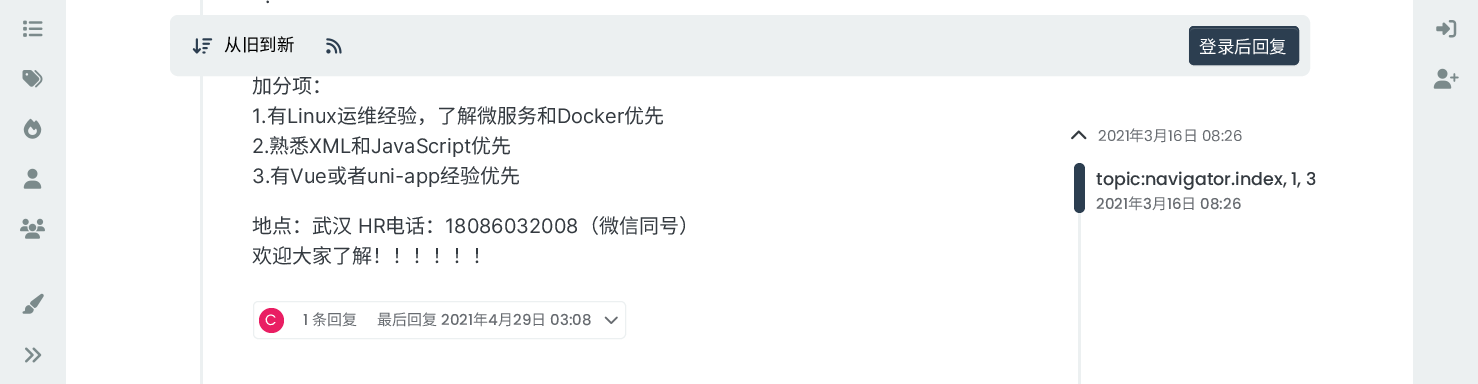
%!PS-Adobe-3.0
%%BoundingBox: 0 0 1478 384
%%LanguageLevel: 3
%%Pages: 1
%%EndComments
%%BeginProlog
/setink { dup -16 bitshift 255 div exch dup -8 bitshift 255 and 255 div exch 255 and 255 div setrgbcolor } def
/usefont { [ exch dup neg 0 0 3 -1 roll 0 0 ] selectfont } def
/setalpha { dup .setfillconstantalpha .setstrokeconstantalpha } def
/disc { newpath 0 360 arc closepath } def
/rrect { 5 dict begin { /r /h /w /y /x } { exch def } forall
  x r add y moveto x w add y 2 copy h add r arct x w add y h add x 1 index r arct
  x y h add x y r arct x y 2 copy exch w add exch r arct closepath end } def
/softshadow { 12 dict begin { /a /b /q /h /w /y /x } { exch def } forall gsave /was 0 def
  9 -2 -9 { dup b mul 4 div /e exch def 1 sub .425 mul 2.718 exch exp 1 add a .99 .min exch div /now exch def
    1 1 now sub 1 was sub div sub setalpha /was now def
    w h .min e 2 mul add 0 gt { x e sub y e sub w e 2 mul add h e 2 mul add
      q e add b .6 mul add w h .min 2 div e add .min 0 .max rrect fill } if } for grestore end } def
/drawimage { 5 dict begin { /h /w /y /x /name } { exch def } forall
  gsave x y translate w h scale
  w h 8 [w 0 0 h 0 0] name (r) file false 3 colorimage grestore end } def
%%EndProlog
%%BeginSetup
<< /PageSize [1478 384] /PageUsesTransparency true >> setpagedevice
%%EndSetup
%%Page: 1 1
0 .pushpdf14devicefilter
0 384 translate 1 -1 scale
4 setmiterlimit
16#FFFFFF setink
0 0 1478 384 rectfill
16#ECF0F1 setink
0 0 66 384 rectfill
(img1.raw) 23 20 20 17 drawimage
(img2.raw) 22 70 21 18 drawimage
(img3.raw) 23 118 19 21 drawimage
(img4.raw) 23 168 19 21 drawimage
(img5.raw) 20 218 25 21 drawimage
(img6.raw) 22 293 22 21 drawimage
(img7.raw) 25 347 17 16 drawimage
200 0 3 384 rectfill
/Inter-Regular 20 usefont
16#343A40 setink
265 3 moveto (.) show
/NotoSansCJKSC-Regular 20 usefont
252 93 moveto (加分项：) show
/Inter-Regular 20 usefont
252 123 moveto (1.) show
/NotoSansCJKSC-Regular 20 usefont
267 123 moveto (有) show
/Inter-Regular 20 usefont
287 123 moveto (Linux) show
/NotoSansCJKSC-Regular 20 usefont
337 123 moveto (运维经验，了解微服务和) show
/Inter-Regular 20 usefont
557 123 moveto (Docker) show
/NotoSansCJKSC-Regular 20 usefont
624 123 moveto (优先) show
/Inter-Regular 20 usefont
252 153 moveto (2.) show
/NotoSansCJKSC-Regular 20 usefont
269 153 moveto (熟悉) show
/Inter-Regular 20 usefont
309 153 moveto (XML) show
/NotoSansCJKSC-Regular 20 usefont
351 153 moveto (和) show
/Inter-Regular 20 usefont
371 153 moveto (JavaScript) show
/NotoSansCJKSC-Regular 20 usefont
471 153 moveto (优先) show
/Inter-Regular 20 usefont
252 183 moveto (3.) show
/NotoSansCJKSC-Regular 20 usefont
270 183 moveto (有) show
/Inter-Regular 20 usefont
290 183 moveto (Vue) show
/NotoSansCJKSC-Regular 20 usefont
327 183 moveto (或者) show
/Inter-Regular 20 usefont
367 183 moveto (uni-app) show
/NotoSansCJKSC-Regular 20 usefont
440 183 moveto (经验优先) show
252 233 moveto (地点：武汉) show
/Inter-Regular 20 usefont
358 233 moveto (HR) show
/NotoSansCJKSC-Regular 20 usefont
385 233 moveto (电话：) show
/Inter-Regular 20 usefont
445 233 moveto (18086032008) show
/NotoSansCJKSC-Regular 20 usefont
579 233 moveto (（微信同号）) show
252 263 moveto (欢迎大家了解！！！！！！) show
16#ECF0F1 setink
253.5 301.5 372 37 4.5 rrect stroke
16#E91E63 setink
271.5 320.5 12.5 disc fill
/Poppins-Regular 15 usefont
16#FFFFFF setink
265 325 moveto (C) show
/Poppins-Medium 15 usefont
16#676B70 setink
303 325 moveto (1) show
/NotoSansCJKSC-Regular 15 usefont
312 325 moveto (条回复) show
377 325 moveto (最后回复) show
/Poppins-Medium 15 usefont
441 325 moveto (2021) show
/NotoSansCJKSC-Regular 15 usefont
473 325 moveto (年) show
/Poppins-Medium 15 usefont
488 325 moveto (4) show
/NotoSansCJKSC-Regular 15 usefont
498 325 moveto (月) show
/Poppins-Medium 15 usefont
513 325 moveto (29) show
/NotoSansCJKSC-Regular 15 usefont
531 325 moveto (日) show
/Poppins-Medium 15 usefont
550 325 moveto (03:08) show
(img8.raw) 604 316 14 8 drawimage
(img9.raw) 1071 130 16 10 drawimage
/Poppins-Regular 15 usefont
1098 141 moveto (2021) show
/NotoSansCJKSC-Regular 15 usefont
1129 141 moveto (年) show
/Poppins-Regular 15 usefont
1144 141 moveto (3) show
/NotoSansCJKSC-Regular 15 usefont
1153 141 moveto (月) show
/Poppins-Regular 15 usefont
1168 141 moveto (16) show
/NotoSansCJKSC-Regular 15 usefont
1183 141 moveto (日) show
/Poppins-Regular 15 usefont
1202 141 moveto (08:26) show
16#ECF0F1 setink
1078 163 3 221 rectfill
16#2C3E50 setink
1074 163 11 50 5.5 rrect fill
/Poppins-Medium 17.5 usefont
16#343A40 setink
1096 185 moveto (topic:navigator.index, 1, 3) show
/Poppins-Medium 15 usefont
16#676B70 setink
1096 209 moveto (2021) show
/NotoSansCJKSC-Regular 15 usefont
1128 209 moveto (年) show
/Poppins-Medium 15 usefont
1143 209 moveto (3) show
/NotoSansCJKSC-Regular 15 usefont
1152 209 moveto (月) show
/Poppins-Medium 15 usefont
1167 209 moveto (16) show
/NotoSansCJKSC-Regular 15 usefont
1181 209 moveto (日) show
/Poppins-Medium 15 usefont
1200 209 moveto (08:26) show
16#ECF0F1 setink
170.5 15.5 1139 60 7.5 rrect gsave fill grestore
stroke
(img10.raw) 192 38 21 16 drawimage
/NotoSansCJKSC-Regular 17.5 usefont
16#000000 setink
224 51 moveto (从旧到新) show
(img11.raw) 326 38 16 16 drawimage
1189 28 110 38 5 0.5 0.07 softshadow
16#2C3E50 setink
1189 26 110 39 5 rrect fill
16#4C5B6A setink
1194 29 moveto 1294 29 lineto 1296 29 1298 30 1298 32 curveto 1298 30 1296 28 1294 28 curveto 1194 28 lineto 1192 28 1190 30 1190 32 curveto 1190 30 1192 29 1194 29 curveto closepath fill
16#2C3E50 setink
1189.5 26.5 109 38 4.5 rrect stroke
16#FFFFFF setink
1199 53 moveto (登录后回复) show
16#ECF0F1 setink
1413 0 65 384 rectfill
(img12.raw) 1436 20 21 18 drawimage
(img13.raw) 1433 68 26 21 drawimage
.poppdf14devicefilter showpage
%%EOF
